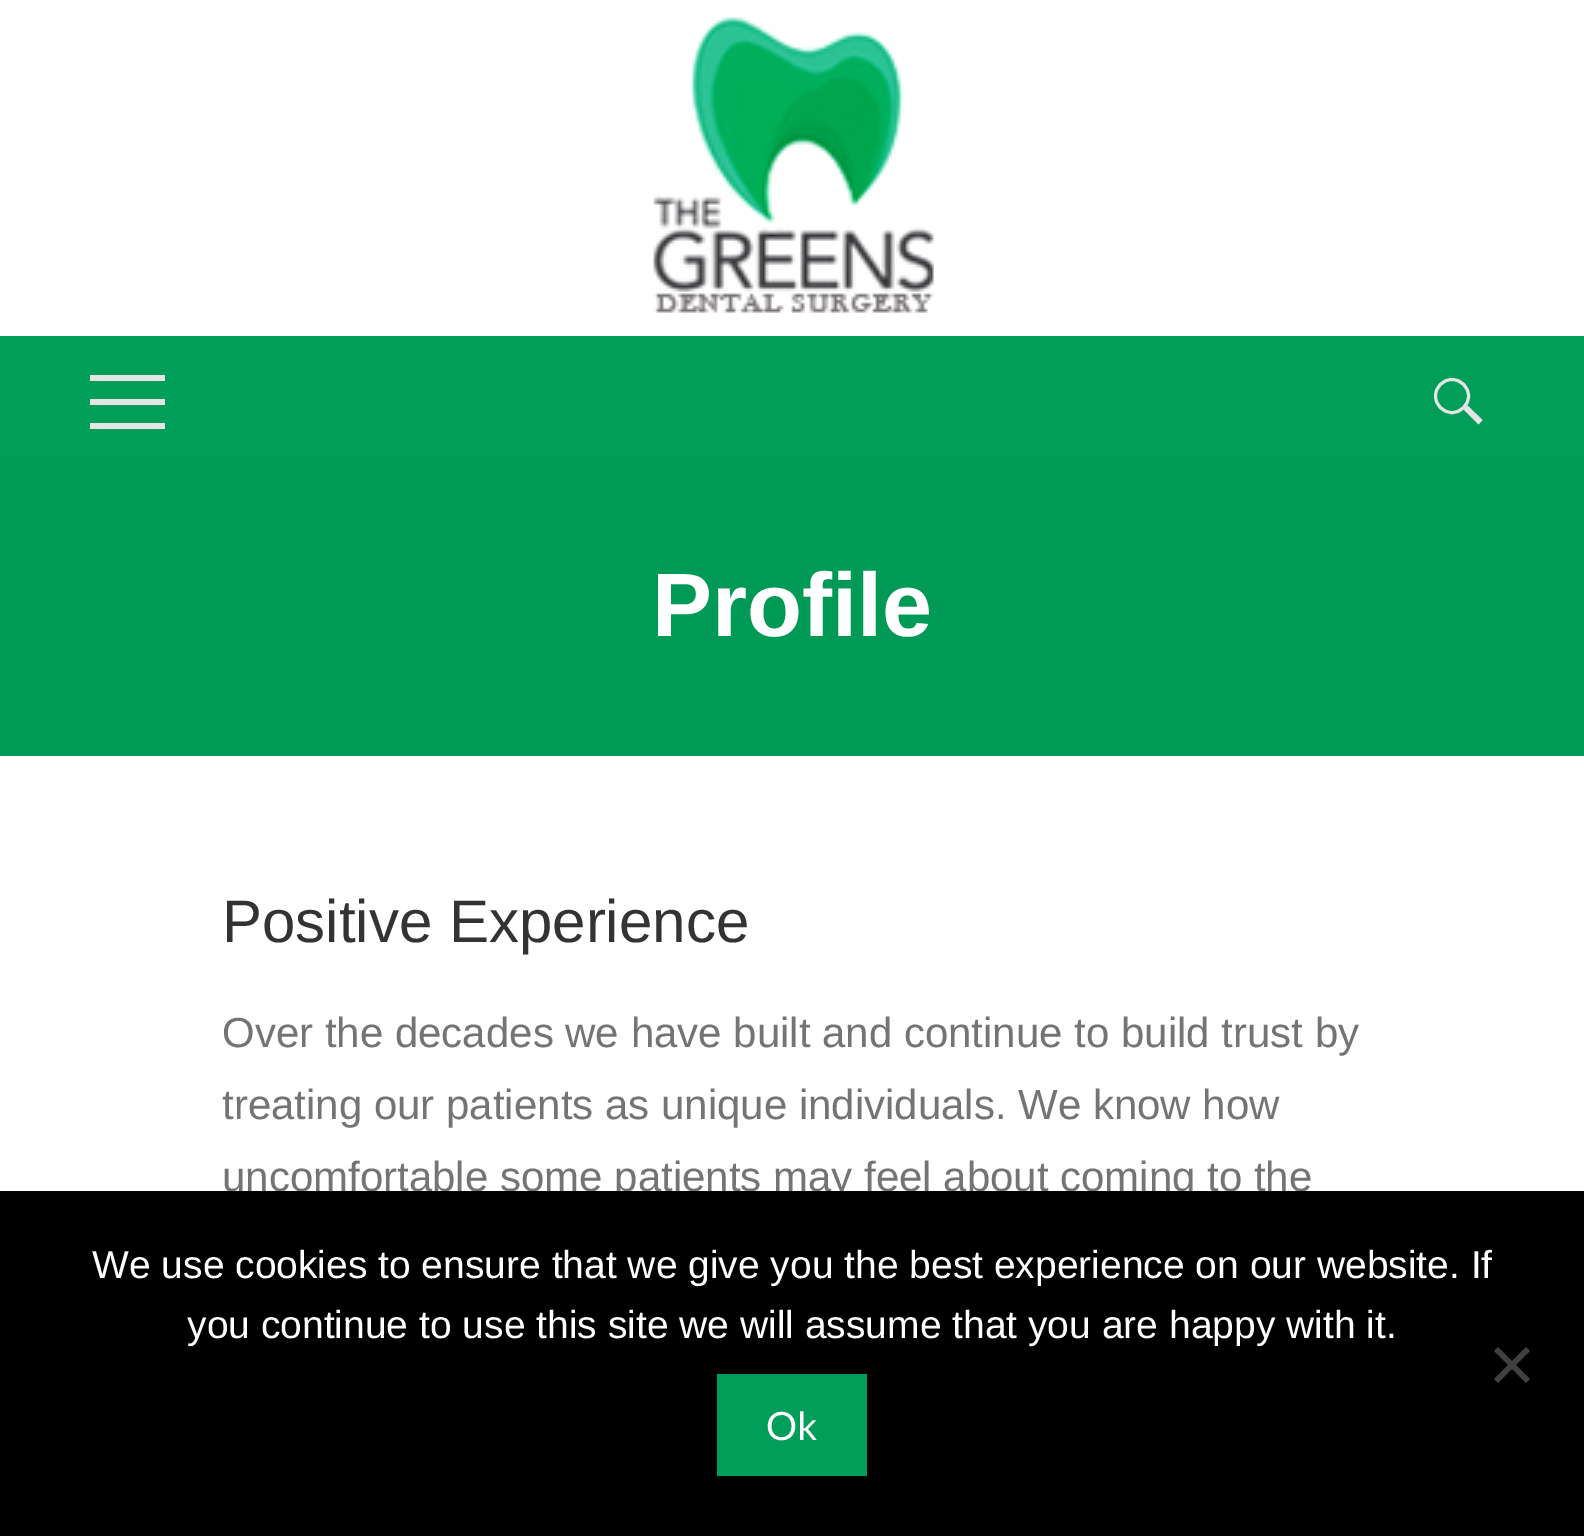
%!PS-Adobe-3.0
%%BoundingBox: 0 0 1584 1536
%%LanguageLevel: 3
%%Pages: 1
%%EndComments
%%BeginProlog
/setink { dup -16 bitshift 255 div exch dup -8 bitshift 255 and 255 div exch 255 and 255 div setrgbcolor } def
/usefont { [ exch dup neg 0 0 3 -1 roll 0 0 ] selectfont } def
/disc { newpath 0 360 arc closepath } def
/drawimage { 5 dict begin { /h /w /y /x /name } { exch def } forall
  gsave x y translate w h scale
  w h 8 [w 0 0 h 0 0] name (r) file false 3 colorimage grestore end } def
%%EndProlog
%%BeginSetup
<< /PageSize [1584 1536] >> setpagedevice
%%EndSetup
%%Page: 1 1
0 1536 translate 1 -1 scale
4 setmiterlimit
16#FFFFFF setink
0 0 1584 1536 rectfill
(img1.raw) 653 17 281 296 drawimage
[
    [0 336 1584 120 16#009E59]
    [90 375 75 6 16#E5E5E5]
    [90 399 75 6 16#E5E5E5]
    [90 423 75 6 16#E5E5E5]
] { aload pop setink rectfill } forall
1463.5 409.5 moveto 1467.5 405.5 lineto 1482.5 420 lineto 1478.5 424.5 lineto closepath fill
3 setlinewidth
1452 396 16.5 disc stroke
16#009A56 setink
0 456 1584 300 rectfill
/LiberationSans-Bold 90 usefont
16#FFFFFF setink
652 636 moveto (Profile) show
/LiberationSans-Regular 60 usefont
16#333333 setink
222 942 moveto (Positive Experience) show
/LiberationSans-Regular 42 usefont
16#747474 setink
[
    [(Over the decades we have built and continue to build trust by) 222 1047]
    [(treating our patients as unique individuals. We know how) 222 1119]
    [(uncomfortable some patients may feel about coming to the) 222 1191]
] { aload pop moveto show } forall
16#000000 setink
0 1191 1584 345 rectfill
/LiberationSans-Regular 39 usefont
16#FFFFFF setink
92 1278 moveto (We use cookies to ensure that we give you the best experience on our website. If) show
187 1338 moveto (you continue to use this site we will assume that you are happy with it.) show
16#404040 setink
1526 1347 moveto 1530 1351 lineto 1498 1383 lineto 1494 1379 lineto closepath fill
1494 1351 moveto 1498 1347 lineto 1530 1379 lineto 1526 1383 lineto closepath fill
16#009E59 setink
717 1374 150 102 rectfill
/Lato-Regular 39 usefont
16#FFFFFF setink
766 1440 moveto (Ok) show
showpage
%%EOF
